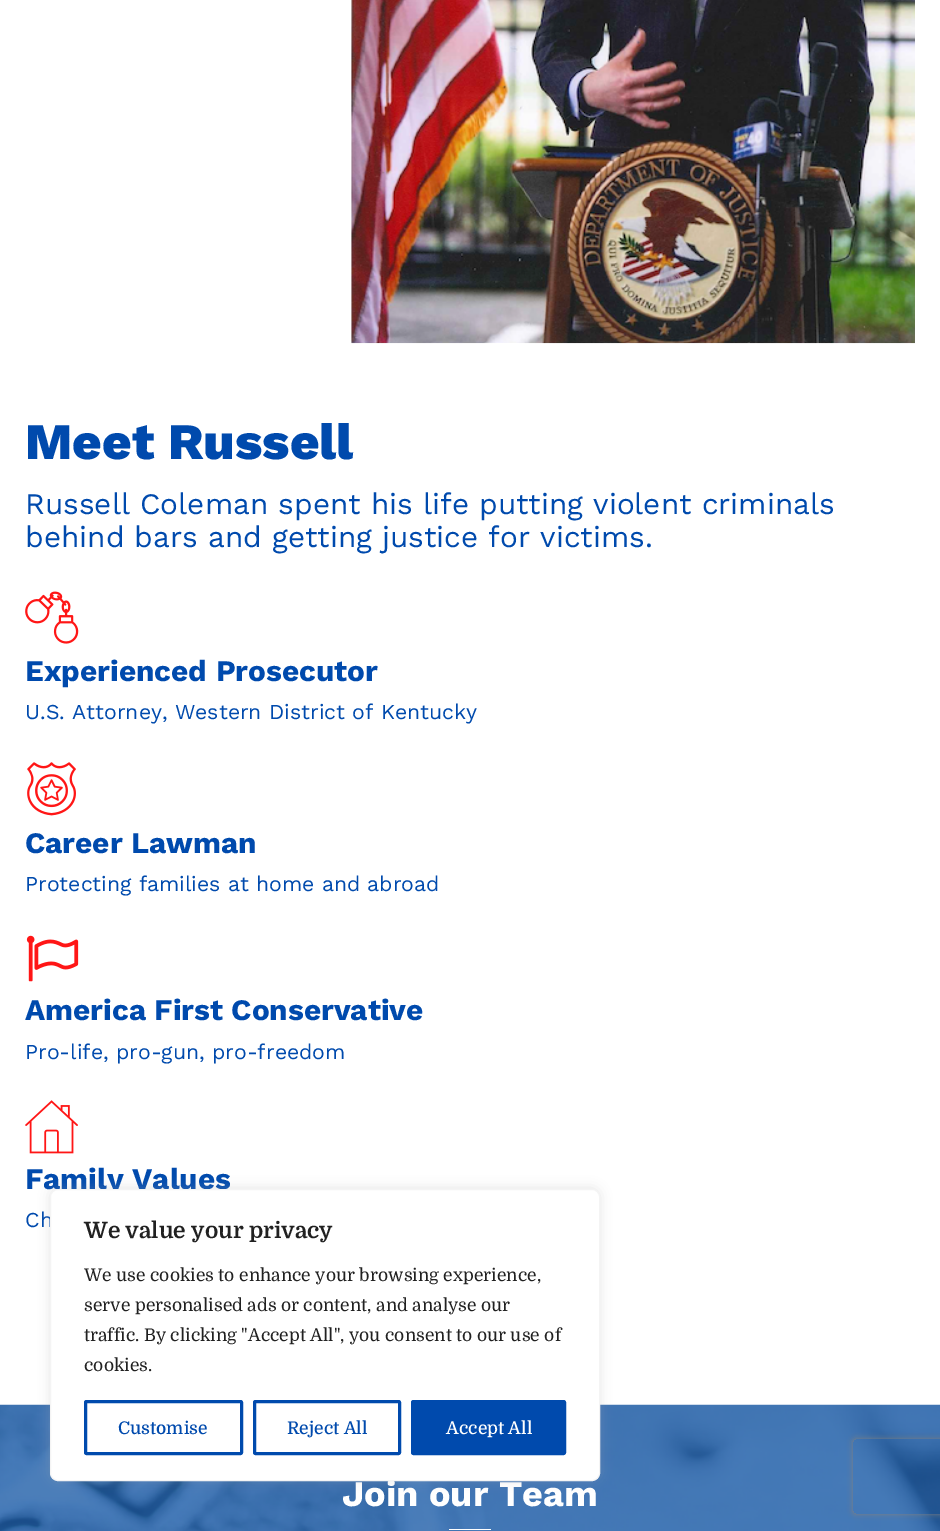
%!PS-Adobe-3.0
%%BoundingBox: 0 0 940 1531
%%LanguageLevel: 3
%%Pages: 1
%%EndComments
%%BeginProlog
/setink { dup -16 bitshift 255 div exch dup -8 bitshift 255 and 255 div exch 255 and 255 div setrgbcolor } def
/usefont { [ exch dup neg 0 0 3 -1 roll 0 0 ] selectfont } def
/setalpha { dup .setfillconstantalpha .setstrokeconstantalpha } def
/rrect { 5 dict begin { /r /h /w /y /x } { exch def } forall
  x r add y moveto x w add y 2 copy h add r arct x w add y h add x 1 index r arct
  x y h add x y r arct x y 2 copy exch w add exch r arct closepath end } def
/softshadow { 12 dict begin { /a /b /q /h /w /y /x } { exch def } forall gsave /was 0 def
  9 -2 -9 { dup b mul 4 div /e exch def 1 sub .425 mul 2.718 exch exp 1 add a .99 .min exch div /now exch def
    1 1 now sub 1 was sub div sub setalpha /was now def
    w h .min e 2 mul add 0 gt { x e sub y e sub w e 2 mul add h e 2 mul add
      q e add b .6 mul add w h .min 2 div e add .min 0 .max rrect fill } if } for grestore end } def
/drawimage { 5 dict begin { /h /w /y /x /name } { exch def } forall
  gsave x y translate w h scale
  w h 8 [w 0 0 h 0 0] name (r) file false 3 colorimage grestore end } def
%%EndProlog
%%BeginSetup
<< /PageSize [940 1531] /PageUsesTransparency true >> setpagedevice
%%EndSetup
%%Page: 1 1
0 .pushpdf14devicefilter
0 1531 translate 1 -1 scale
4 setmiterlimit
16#FFFFFF setink
0 0 940 1531 rectfill
(img1.raw) 351 0 564 344 drawimage
/WorkSans-ExtraBold 51 usefont
16#004AAD setink
25 459 moveto (Meet Russell) show
/WorkSans-Regular 29.75 usefont
25 514 moveto (Russell Coleman spent his life putting violent criminals) show
25 547 moveto (behind bars and getting justice for victims.) show
(img2.raw) 25 591 54 53 drawimage
/WorkSans-Bold 29.75 usefont
25 681 moveto (Experienced Prosecutor) show
/WorkSans-Regular 21.25 usefont
25 719 moveto (U.S. Attorney, Western District of Kentucky) show
(img3.raw) 27 762 49 54 drawimage
/WorkSans-Bold 29.75 usefont
25 853 moveto (Career Lawman) show
/WorkSans-Regular 21.25 usefont
25 891 moveto (Protecting families at home and abroad) show
(img4.raw) 26 935 53 47 drawimage
/WorkSans-Bold 29.75 usefont
25 1020 moveto (America First Conservative) show
/WorkSans-Regular 21.25 usefont
25 1059 moveto (Pro-life, pro-gun, pro-freedom) show
(img5.raw) 25 1100 53 54 drawimage
/WorkSans-Bold 29.75 usefont
25 1189 moveto (Family Values) show
/WorkSans-Regular 21.25 usefont
25 1227 moveto (Ch) show
(img6.raw) 0 1404 940 127 drawimage
/WorkSans-Bold 36 usefont
16#FFFFFF setink
342 1506 moveto (Join our Team) show
449 1529 42 1 rectfill
16#ACABAB setink
50 1188 550 292 8 6 0.3 softshadow
16#FFFFFF setink
50.5 1189.5 549 291 7.5 rrect gsave fill grestore
16#F4F4F4 setink
stroke
/Domine-Bold 22.5 usefont
16#212121 setink
84 1238 moveto (We value your privacy) show
/Domine-Regular 17.5 usefont
[
    [(We use cookies to enhance your browsing experience,) 84 1281]
    [(serve personalised ads or content, and analyse our) 84 1311]
    [(traffic. By clicking "Accept All", you consent to our use of) 84 1341]
    [(cookies.) 84 1371]
] { aload pop moveto show } forall
16#004AAD setink
3 setlinewidth
85.5 1401.5 156 52 1 rrect stroke
/Domine-Medium 17.5 usefont
118 1434 moveto (Customise) show
254.5 1401.5 145 52 1 rrect stroke
287 1434 moveto (Reject All) show
412.5 1401.5 152 52 1 rrect gsave fill grestore
stroke
16#FFFFFF setink
446 1434 moveto (Accept All) show
gsave
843 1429 moveto 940 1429 lineto 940 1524 lineto 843 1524 lineto closepath 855.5 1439 moveto 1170.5 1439 lineto 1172 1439 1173 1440 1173 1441.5 curveto 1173 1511.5 lineto 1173 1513 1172 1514 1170.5 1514 curveto 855.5 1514 lineto 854 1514 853 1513 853 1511.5 curveto 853 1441.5 lineto 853 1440 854 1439 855.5 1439 curveto closepath eoclip newpath
16#808080 setink
853 1439 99 75 2.5 3 1 softshadow
grestore
.poppdf14devicefilter showpage
%%EOF
